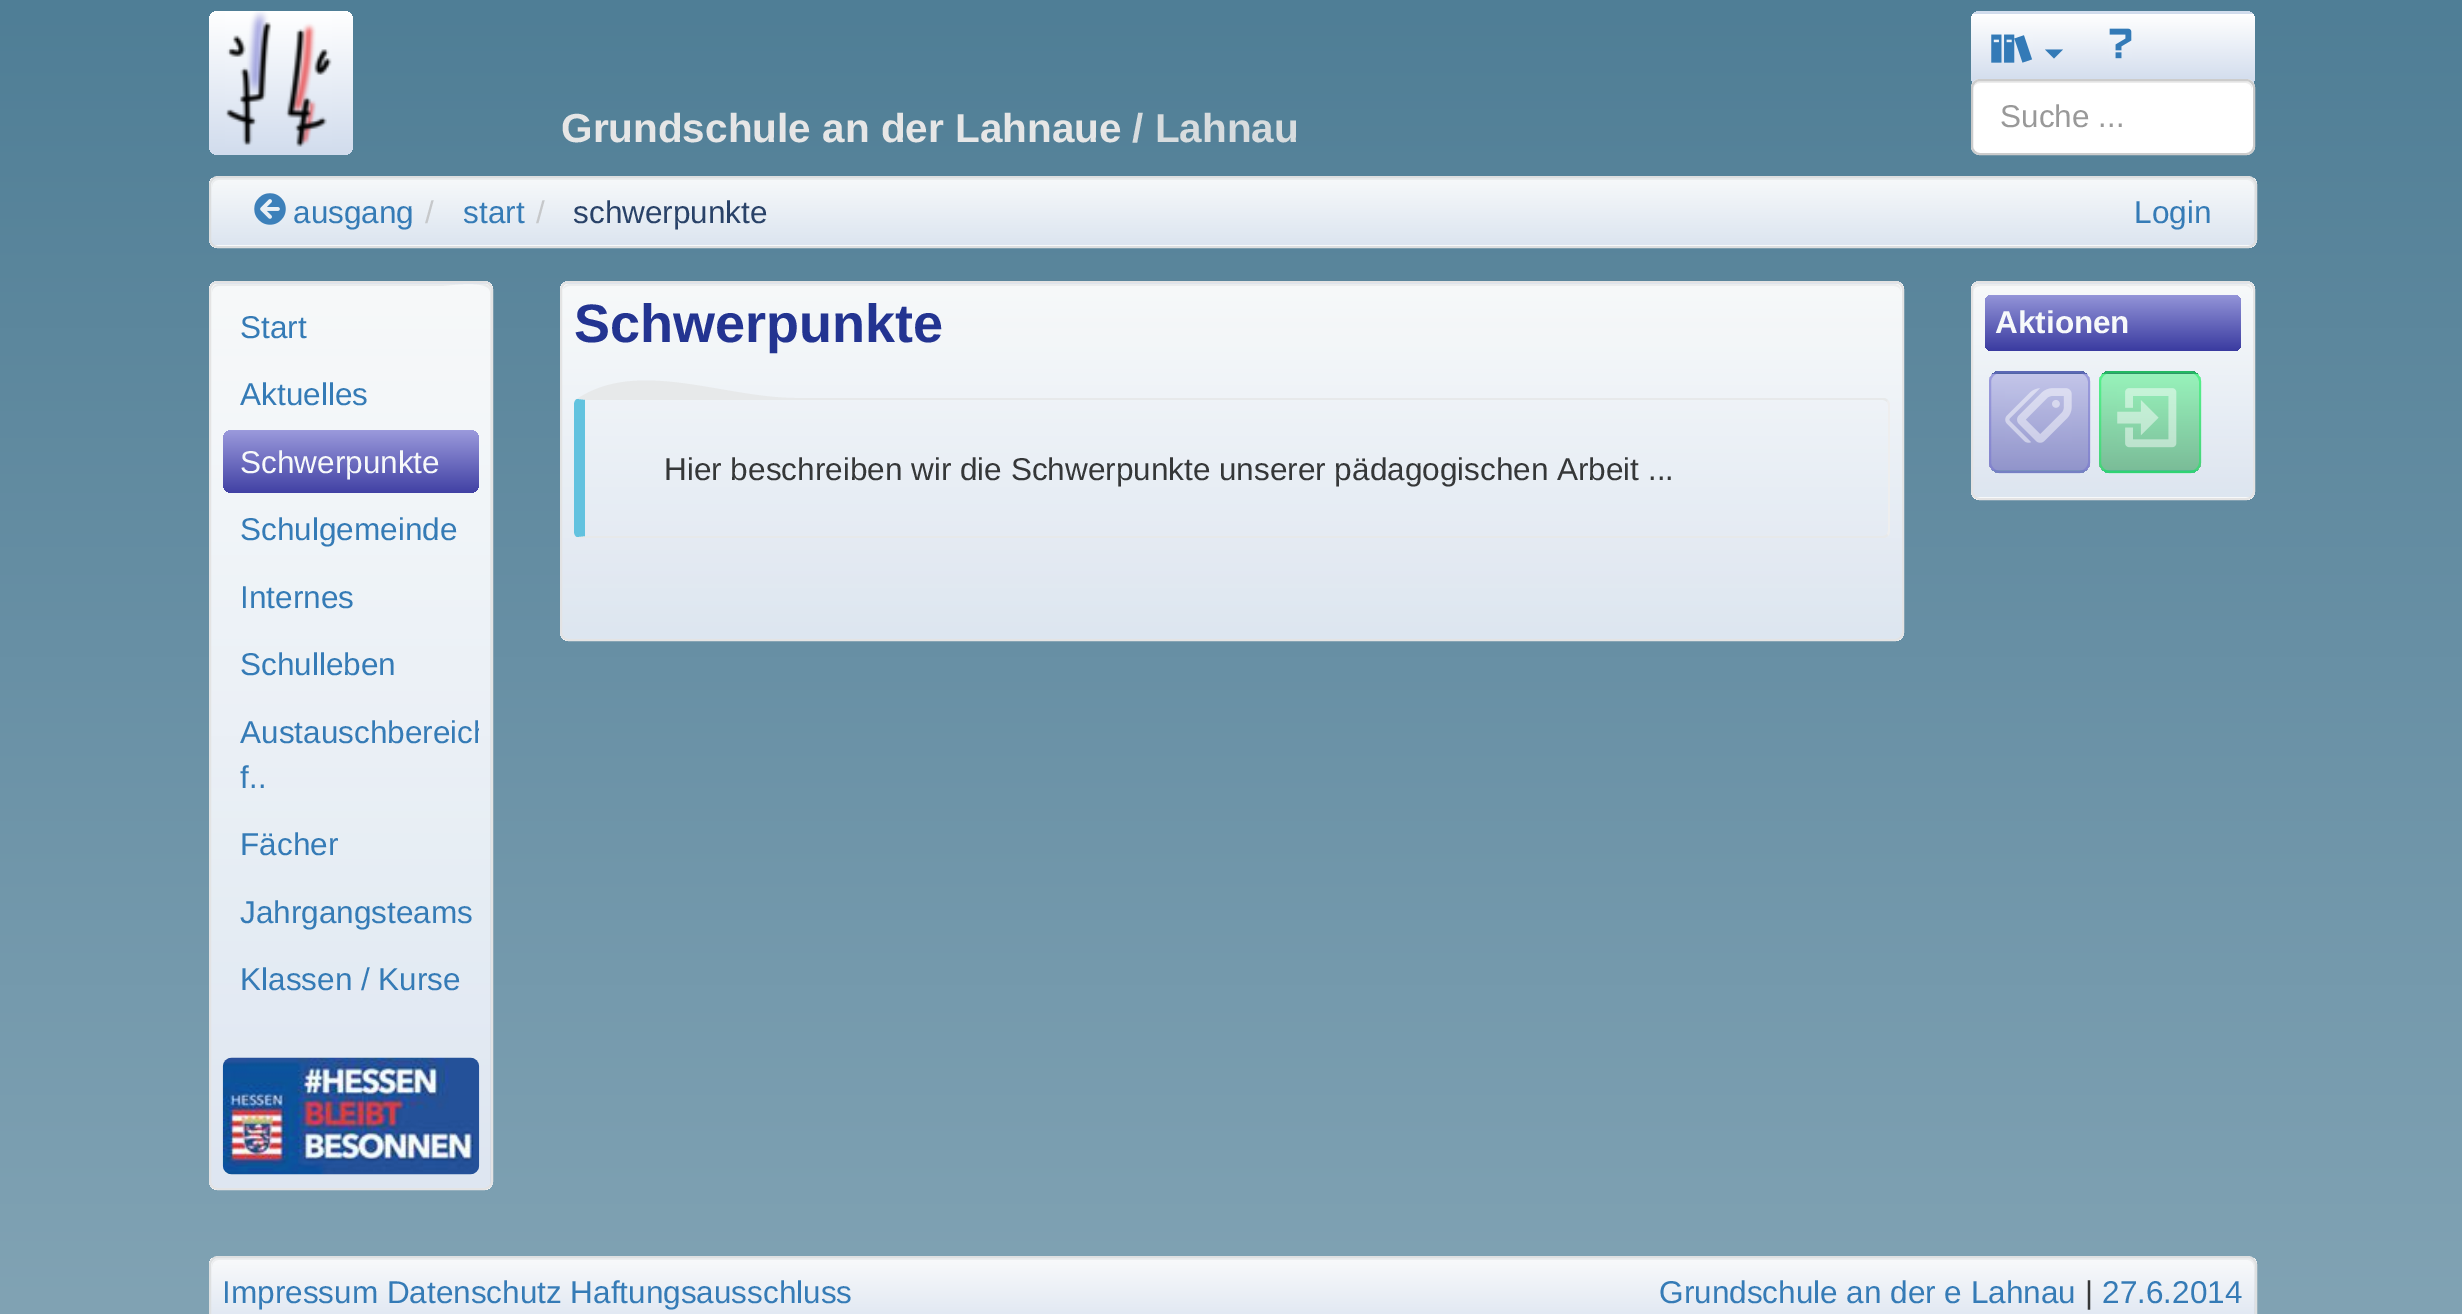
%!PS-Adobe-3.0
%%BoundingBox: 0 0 2462 1314
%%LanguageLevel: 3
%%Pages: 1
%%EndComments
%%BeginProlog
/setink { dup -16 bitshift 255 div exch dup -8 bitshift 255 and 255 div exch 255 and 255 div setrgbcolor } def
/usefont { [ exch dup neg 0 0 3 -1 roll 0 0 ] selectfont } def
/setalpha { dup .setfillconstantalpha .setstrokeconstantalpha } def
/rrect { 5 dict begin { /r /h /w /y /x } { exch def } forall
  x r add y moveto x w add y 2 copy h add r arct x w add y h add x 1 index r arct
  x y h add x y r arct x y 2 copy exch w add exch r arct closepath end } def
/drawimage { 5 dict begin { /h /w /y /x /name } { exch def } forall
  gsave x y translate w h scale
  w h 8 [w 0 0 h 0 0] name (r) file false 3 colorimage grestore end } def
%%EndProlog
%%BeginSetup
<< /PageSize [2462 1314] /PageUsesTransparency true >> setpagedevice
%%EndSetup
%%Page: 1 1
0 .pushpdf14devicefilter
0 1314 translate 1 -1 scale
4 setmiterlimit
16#FFFFFF setink
0 0 2462 1314 rectfill
gsave 0 0 moveto 2462 0 lineto 2462 1314 lineto 0 1314 lineto closepath clip newpath
<< /ShadingType 2 /ColorSpace /DeviceRGB /Coords [0 1314 0 0] /Extend [true true] /Function << /FunctionType 2 /Domain [0 1] /C0 [0.506 0.639 0.706] /C1 [0.31 0.494 0.588] /N 1 >> >> shfill grestore
gsave 209 11 144 144 9 rrect clip newpath
<< /ShadingType 2 /ColorSpace /DeviceRGB /Coords [209 155 209 11] /Extend [true true] /Function << /FunctionType 2 /Domain [0 1] /C0 [0.82 0.863 0.929] /C1 [1 1 1] /N 1 >> >> shfill grestore
(img1.raw) 225 11 107 136 drawimage
gsave
1971 11 284 75 9 rrect clip newpath
gsave 1971 11 moveto 2255 11 lineto 2255 14 lineto 1971 14 lineto closepath clip newpath
<< /ShadingType 2 /ColorSpace /DeviceRGB /Coords [1973 14 1973 -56] /Extend [true true] /Function << /FunctionType 2 /Domain [0 1] /C0 [0.82 0.863 0.929] /C1 [1 1 1] /N 1 >> >> shfill grestore
gsave 1971 14 moveto 2255 14 lineto 2255 83 lineto 1971 83 lineto closepath clip newpath
<< /ShadingType 2 /ColorSpace /DeviceRGB /Coords [1973 83 1973 14] /Extend [true true] /Function << /FunctionType 2 /Domain [0 1] /C0 [0.82 0.863 0.929] /C1 [1 1 1] /N 1 >> >> shfill grestore
grestore
(img2.raw) 1991 34 42 29 drawimage
16#337AB7 setink
2045 49.5 moveto 2063 49.5 lineto 2054 58.5 lineto closepath fill
(img3.raw) 2109 28 23 31 drawimage
/LiberationSans-Bold 40.5 usefont
16#E6E6E6 setink
561 142 moveto (Grundschule an der Lahnaue) show
16#D7DCDE setink
1132 142 moveto (/ Lahnau) show
16#FFFFFF setink
1971 79 284 76 9 rrect fill
16#ECECEC setink
1980 83 moveto 2246 83 lineto 2249 83 2252 86 2252 90 curveto 2252 88 lineto 2252 84 2249 81 2245 81 curveto 1980 81 lineto 1976 81 1973 84 1973 88 curveto 1973 90 lineto 1973 86 1976 83 1980 83 curveto closepath fill
16#CCCCCC setink
2 setlinewidth
1972 80 282 74 8 rrect stroke
/LiberationSans-Regular 31.5 usefont
16#999999 setink
2000 127 moveto (Suche ...) show
gsave
209 176 2048 72 9 rrect clip newpath
gsave 209 178 moveto 2257 178 lineto 2257 245 lineto 209 245 lineto closepath clip newpath
<< /ShadingType 2 /ColorSpace /DeviceRGB /Coords [212 245 212 178] /Extend [true true] /Function << /FunctionType 2 /Domain [0 1] /C0 [0.863 0.898 0.941] /C1 [0.969 0.976 0.98] /N 1 >> >> shfill grestore
gsave 209 245 moveto 2257 245 lineto 2257 248 lineto 209 248 lineto closepath clip newpath
<< /ShadingType 2 /ColorSpace /DeviceRGB /Coords [212 313 212 245] /Extend [true true] /Function << /FunctionType 2 /Domain [0 1] /C0 [0.863 0.898 0.941] /C1 [0.969 0.976 0.98] /N 1 >> >> shfill grestore
grestore
0.05 setalpha
16#040708 setink
218 180 moveto 2248 180 lineto 2251 180 2254 183 2254 187 curveto 2254 242 lineto 2255 241 2255 239 2255 238 curveto 2255 185 lineto 2255 181 2252 178 2248 178 curveto 219 178 lineto 215 178 212 181 212 185 curveto 212 187 lineto 212 183 215 180 218 180 curveto closepath fill
1 setalpha
16#DCDEDF setink
210 177 2046 70 8 rrect stroke
(img4.raw) 254 193 32 32 drawimage
16#357BB6 setink
293 223 moveto (ausgang) show
16#C6C8CA setink
425 223 moveto (/) show
16#357BB6 setink
463 223 moveto (start) show
16#C6C8CA setink
536 223 moveto (/) show
16#294268 setink
573 223 moveto (schwerpunkte) show
16#357BB6 setink
2134 223 moveto (Login) show
gsave
209 281 284 909 9 rrect clip newpath
gsave 209 281 moveto 493 281 lineto 493 284 lineto 209 284 lineto closepath clip newpath
<< /ShadingType 2 /ColorSpace /DeviceRGB /Coords [212 284 212 -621] /Extend [true true] /Function << /FunctionType 2 /Domain [0 1] /C0 [0.863 0.898 0.941] /C1 [0.969 0.976 0.98] /N 1 >> >> shfill grestore
0.95 setalpha
gsave 209 284 moveto 493 284 lineto 493 1188 lineto 209 1188 lineto closepath clip newpath
<< /ShadingType 2 /ColorSpace /DeviceRGB /Coords [212 1188 212 284] /Extend [true true] /Function << /FunctionType 2 /Domain [0 1] /C0 [0.89 0.918 0.957] /C1 [1 1 1] /N 1 >> >> shfill grestore
1 setalpha
gsave 209 1188 moveto 493 1188 lineto 493 1190 lineto 209 1190 lineto closepath clip newpath
<< /ShadingType 2 /ColorSpace /DeviceRGB /Coords [212 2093 212 1188] /Extend [true true] /Function << /FunctionType 2 /Domain [0 1] /C0 [0.871 0.902 0.945] /C1 [0.973 0.98 0.984] /N 1 >> >> shfill grestore
grestore
0.05 setalpha
16#000000 setink
218 286 moveto 440 286 lineto 447 286 490 279 490 292 curveto 490 1185 lineto 491 1184 491 1182 491 1181 curveto 491 291 lineto 491 287 488 284 484 284 curveto 219 284 lineto 215 284 212 287 212 291 curveto 212 292 lineto 212 289 215 286 218 286 curveto closepath fill
0.95 setalpha
16#E3E3E3 setink
210 282 282 907 8 rrect stroke
1 setalpha
16#357BB6 setink
240 338 moveto (Start) show
240 405 moveto (Aktuelles) show
gsave 223 430 256 63 9 rrect clip newpath
<< /ShadingType 2 /ColorSpace /DeviceRGB /Coords [223 493 223 430] /Extend [true true] /Function << /FunctionType 2 /Domain [0 1] /C0 [0.255 0.255 0.643] /C1 [0.608 0.604 0.863] /N 1 >> >> shfill grestore
16#F7F9FA setink
240 473 moveto (Schwerpunkte) show
16#357BB6 setink
[
    [(Schulgemeinde) 240 540]
    [(Internes) 240 608]
    [(Schulleben) 240 675]
] { aload pop moveto show } forall
gsave
223 700 256 108 9 rrect clip newpath
240 743 moveto (Austauschbereich) show
grestore
[
    [(f..) 240 788]
    [(Fächer) 240 855]
    [(Jahrgangsteams) 240 923]
    [(Klassen / Kurse) 240 990]
] { aload pop moveto show } forall
(img5.raw) 222 1057 258 118 drawimage
gsave
560 281 1344 360 9 rrect clip newpath
gsave 560 281 moveto 1904 281 lineto 1904 284 lineto 560 284 lineto closepath clip newpath
<< /ShadingType 2 /ColorSpace /DeviceRGB /Coords [563 284 563 -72] /Extend [true true] /Function << /FunctionType 2 /Domain [0 1] /C0 [0.863 0.898 0.941] /C1 [0.969 0.976 0.98] /N 1 >> >> shfill grestore
0.95 setalpha
gsave 560 284 moveto 1904 284 lineto 1904 639 lineto 560 639 lineto closepath clip newpath
<< /ShadingType 2 /ColorSpace /DeviceRGB /Coords [563 639 563 284] /Extend [true true] /Function << /FunctionType 2 /Domain [0 1] /C0 [0.89 0.918 0.957] /C1 [1 1 1] /N 1 >> >> shfill grestore
1 setalpha
gsave 560 639 moveto 1904 639 lineto 1904 641 lineto 560 641 lineto closepath clip newpath
<< /ShadingType 2 /ColorSpace /DeviceRGB /Coords [563 995 563 639] /Extend [true true] /Function << /FunctionType 2 /Domain [0 1] /C0 [0.867 0.902 0.941] /C1 [0.969 0.976 0.984] /N 1 >> >> shfill grestore
grestore
16#EBEDEE setink
569 286 moveto 1894 286 lineto 1898 286 1901 289 1901 292 curveto 1901 291 lineto 1901 287 1898 284 1894 284 curveto 570 284 lineto 567 284 564 286 563 289 curveto 565 287 567 286 569 286 curveto closepath fill
0.95 setalpha
16#E3E3E3 setink
561 282 1342 358 8 rrect stroke
/LiberationSans-Bold 54 usefont
1 setalpha
16#233491 setink
574 342 moveto (Schwerpunkte) show
16#E7E9EA setink
585 400 moveto 577 399 lineto 638 358 723 398 796 398 curveto 1885 398 lineto 1888 400 lineto 1887 402 lineto 1886 401 1884 400 1883 400 curveto closepath fill
0.95 setalpha
16#EEEEEE setink
1890 531 moveto 1890 405 lineto 1890 403 1889 401 1888 400 curveto 1887 402 lineto 1888 405 lineto 1888 531 lineto 1887 534 lineto 1888 536 lineto 1889 535 1890 533 1890 531 curveto closepath fill
1 setalpha
16#E7E9EA setink
578 538 moveto 577 537 lineto 585 536 lineto 1883 536 lineto 1884 536 1886 535 1887 534 curveto 1888 536 lineto 1885 538 lineto closepath fill
0.95 setalpha
16#5BC0DE setink
577 537 moveto 575 536 574 534 574 531 curveto 574 405 lineto 574 402 575 400 577 399 curveto 585 400 lineto 585 536 lineto closepath fill
/LiberationSans-Regular 31.5 usefont
1 setalpha
16#353738 setink
664 480 moveto (Hier beschreiben wir die Schwerpunkte unserer pädagogischen Arbeit ...) show
gsave
1971 281 284 219 9 rrect clip newpath
gsave 1971 281 moveto 2255 281 lineto 2255 284 lineto 1971 284 lineto closepath clip newpath
<< /ShadingType 2 /ColorSpace /DeviceRGB /Coords [1973 284 1973 70] /Extend [true true] /Function << /FunctionType 2 /Domain [0 1] /C0 [0.863 0.898 0.941] /C1 [0.969 0.976 0.98] /N 1 >> >> shfill grestore
0.95 setalpha
gsave 1971 284 moveto 2255 284 lineto 2255 497 lineto 1971 497 lineto closepath clip newpath
<< /ShadingType 2 /ColorSpace /DeviceRGB /Coords [1973 497 1973 284] /Extend [true true] /Function << /FunctionType 2 /Domain [0 1] /C0 [0.89 0.918 0.957] /C1 [1 1 1] /N 1 >> >> shfill grestore
1 setalpha
gsave 1971 497 moveto 2255 497 lineto 2255 500 lineto 1971 500 lineto closepath clip newpath
<< /ShadingType 2 /ColorSpace /DeviceRGB /Coords [1973 711 1973 497] /Extend [true true] /Function << /FunctionType 2 /Domain [0 1] /C0 [0.867 0.898 0.941] /C1 [0.969 0.976 0.98] /N 1 >> >> shfill grestore
grestore
16#EBEDEE setink
1980 286 moveto 2246 286 lineto 2249 286 2252 289 2252 292 curveto 2252 288 2250 284 2245 284 curveto 1979 284 lineto 1975 285 1973 288 1973 292 curveto 1973 289 1976 286 1980 286 curveto closepath fill
0.95 setalpha
16#E3E3E3 setink
1972 282 282 217 8 rrect stroke
1 setalpha
gsave 1985 295 256 56 7 rrect clip newpath
<< /ShadingType 2 /ColorSpace /DeviceRGB /Coords [1985 351 1985 295] /Extend [true true] /Function << /FunctionType 2 /Domain [0 1] /C0 [0.227 0.231 0.627] /C1 [0.576 0.58 0.847] /N 1 >> >> shfill grestore
/LiberationSans-Bold 31.5 usefont
16#F7F9FA setink
1995 333 moveto (Aktionen) show
gsave
1989 371 101 102 11 rrect clip newpath
gsave 1989 371 moveto 2090 371 lineto 2090 374 lineto 1989 374 lineto closepath clip newpath
<< /ShadingType 2 /ColorSpace /DeviceRGB /Coords [1991 374 1991 277] /Extend [true true] /Function << /FunctionType 2 /Domain [0 1] /C0 [0.294 0.384 0.624] /C1 [0.471 0.557 0.733] /N 1 >> >> shfill grestore
0.47 setalpha
gsave 1989 374 moveto 2090 374 lineto 2090 470 lineto 1989 470 lineto closepath clip newpath
<< /ShadingType 2 /ColorSpace /DeviceRGB /Coords [1991 470 1991 374] /Extend [true true] /Function << /FunctionType 2 /Domain [0 1] /C0 [0.22 0.216 0.627] /C1 [0.588 0.584 0.859] /N 1 >> >> shfill grestore
1 setalpha
gsave 1989 470 moveto 2090 470 lineto 2090 473 lineto 1989 473 lineto closepath clip newpath
<< /ShadingType 2 /ColorSpace /DeviceRGB /Coords [1991 567 1991 470] /Extend [true true] /Function << /FunctionType 2 /Domain [0 1] /C0 [0.306 0.388 0.631] /C1 [0.478 0.565 0.741] /N 1 >> >> shfill grestore
grestore
0.47 setalpha
16#706FCE setink
1990 372 99 100 10 rrect stroke
1 setalpha
(img6.raw) 2005 388 67 55 drawimage
gsave
2099 371 102 102 11 rrect clip newpath
gsave 2099 371 moveto 2201 371 lineto 2201 374 lineto 2099 374 lineto closepath clip newpath
<< /ShadingType 2 /ColorSpace /DeviceRGB /Coords [2102 374 2102 277] /Extend [true true] /Function << /FunctionType 2 /Domain [0 1] /C0 [0.208 0.541 0.424] /C1 [0.298 0.733 0.549] /N 1 >> >> shfill grestore
0.47 setalpha
gsave 2099 374 moveto 2201 374 lineto 2201 470 lineto 2099 470 lineto closepath clip newpath
<< /ShadingType 2 /ColorSpace /DeviceRGB /Coords [2102 470 2102 374] /Extend [true true] /Function << /FunctionType 2 /Domain [0 1] /C0 [0.031 0.549 0.204] /C1 [0.224 0.957 0.471] /N 1 >> >> shfill grestore
1 setalpha
gsave 2099 470 moveto 2201 470 lineto 2201 473 lineto 2099 473 lineto closepath clip newpath
<< /ShadingType 2 /ColorSpace /DeviceRGB /Coords [2102 567 2102 470] /Extend [true true] /Function << /FunctionType 2 /Domain [0 1] /C0 [0.216 0.545 0.427] /C1 [0.306 0.741 0.557] /N 1 >> >> shfill grestore
grestore
0.47 setalpha
16#0DED58 setink
2100 372 100 100 10 rrect stroke
1 setalpha
(img7.raw) 2117 388 60 60 drawimage
gsave
209 1256 2048 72 9 rrect clip newpath
gsave 209 1258 moveto 2257 1258 lineto 2257 1314 lineto 209 1314 lineto closepath clip newpath
<< /ShadingType 2 /ColorSpace /DeviceRGB /Coords [212 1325 212 1258] /Extend [true true] /Function << /FunctionType 2 /Domain [0 1] /C0 [0.871 0.902 0.945] /C1 [0.976 0.98 0.984] /N 1 >> >> shfill grestore
grestore
0.05 setalpha
16#060809 setink
218 1260 moveto 2248 1260 lineto 2251 1260 2254 1263 2254 1267 curveto 2254 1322 lineto 2255 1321 2255 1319 2255 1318 curveto 2255 1265 lineto 2255 1261 2252 1258 2248 1258 curveto 219 1258 lineto 215 1258 212 1261 212 1265 curveto 212 1267 lineto 212 1263 215 1260 218 1260 curveto closepath fill
1 setalpha
16#DEE0E1 setink
210 1257 2046 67 8 rrect stroke
/LiberationSans-Regular 31.5 usefont
16#357BB6 setink
222 1303 moveto (Impressum Datenschutz Haftungsausschluss) show
1659 1303 moveto (Grundschule an der e Lahnau) show
16#353738 setink
2085 1303 moveto (|) show
16#357BB6 setink
2102 1303 moveto (27.6.2014) show
.poppdf14devicefilter showpage
%%EOF
